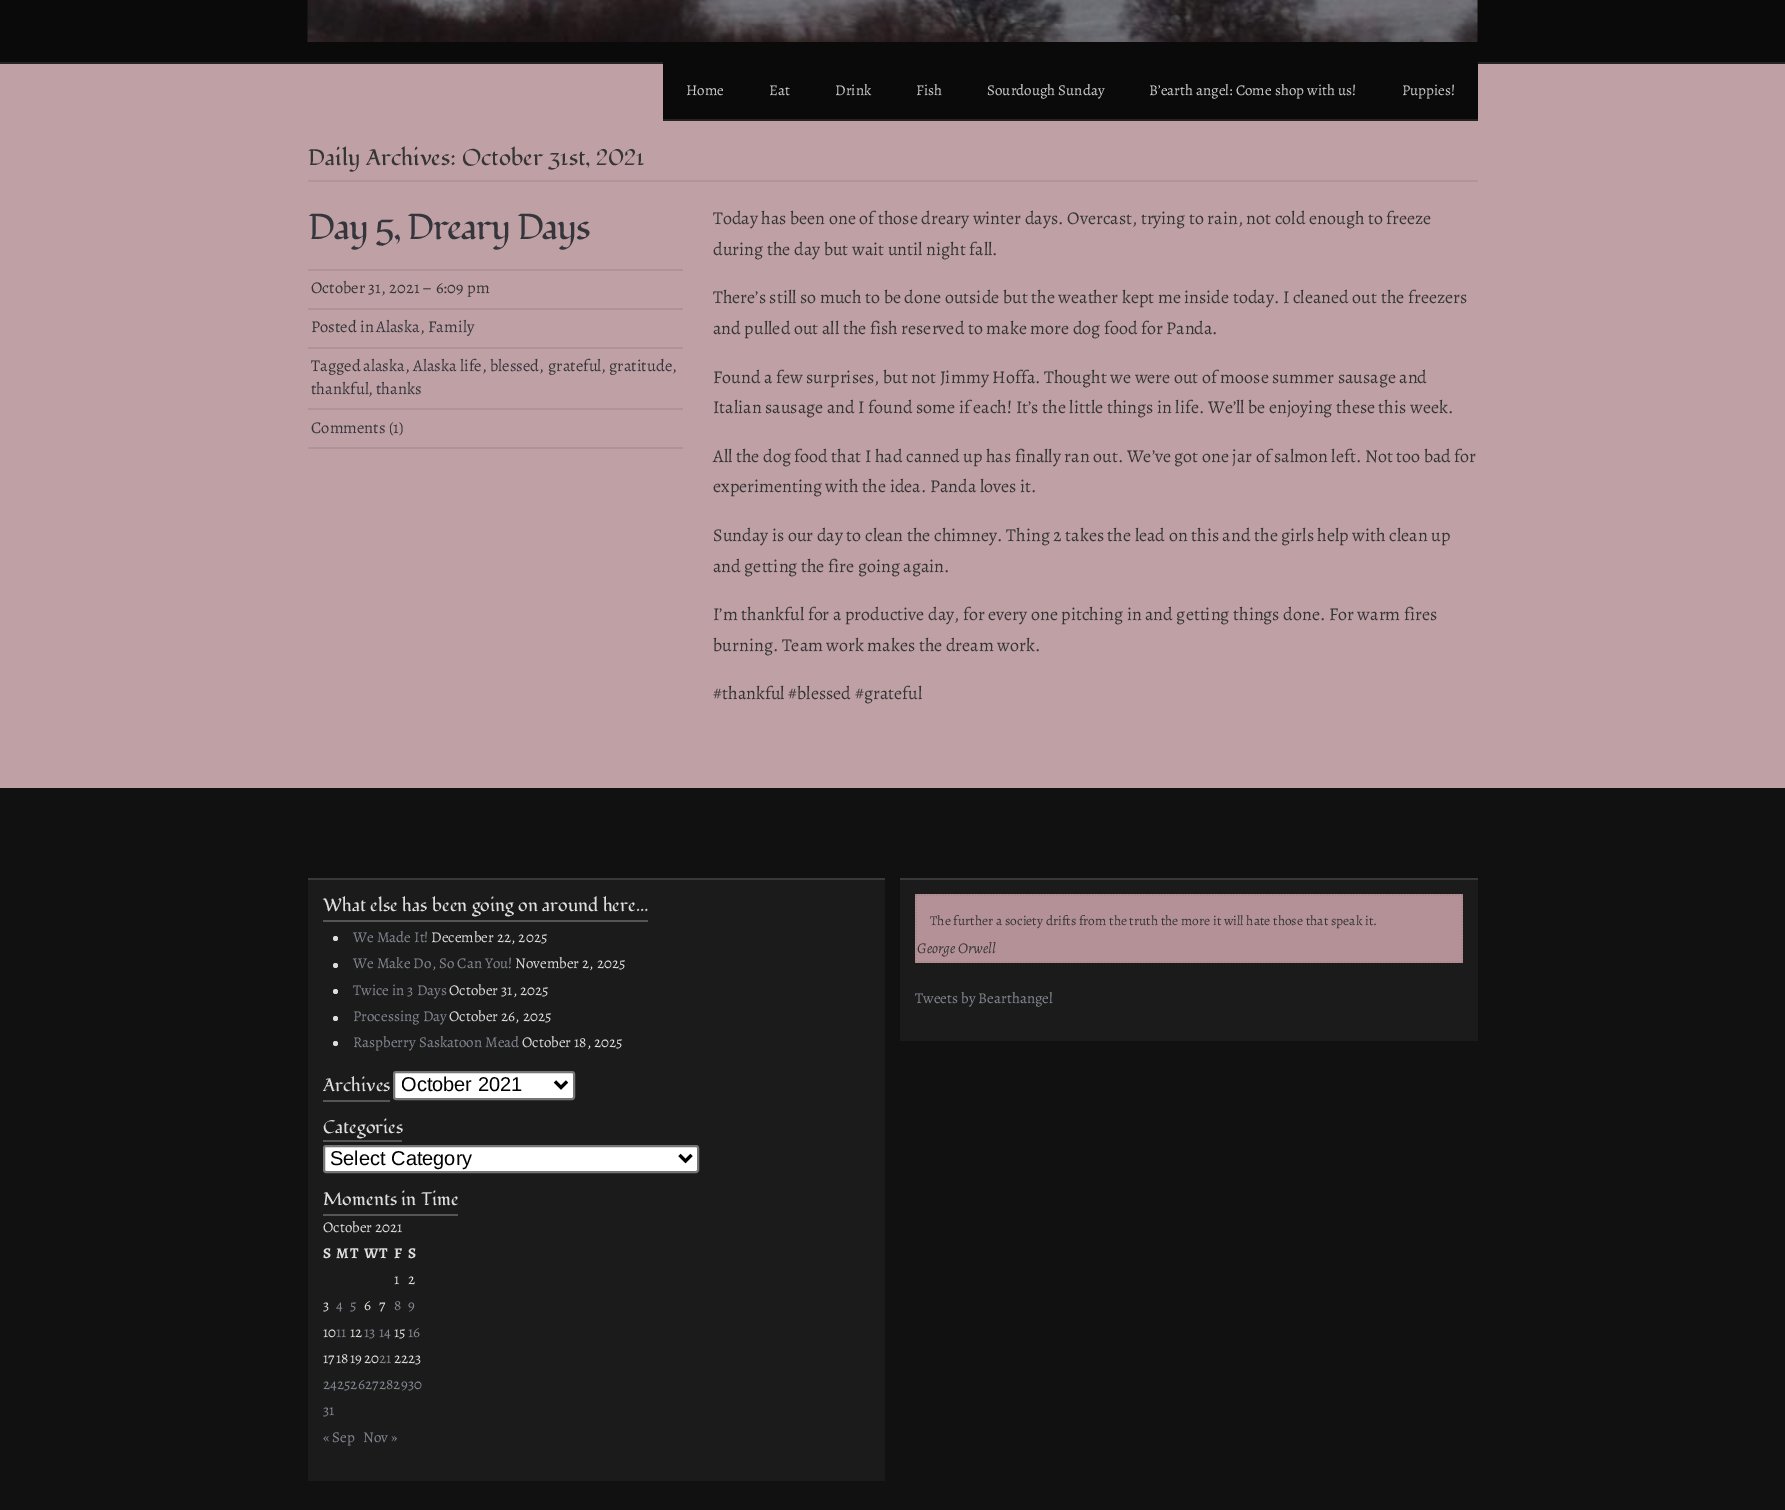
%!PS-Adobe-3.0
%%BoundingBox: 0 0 1785 1510
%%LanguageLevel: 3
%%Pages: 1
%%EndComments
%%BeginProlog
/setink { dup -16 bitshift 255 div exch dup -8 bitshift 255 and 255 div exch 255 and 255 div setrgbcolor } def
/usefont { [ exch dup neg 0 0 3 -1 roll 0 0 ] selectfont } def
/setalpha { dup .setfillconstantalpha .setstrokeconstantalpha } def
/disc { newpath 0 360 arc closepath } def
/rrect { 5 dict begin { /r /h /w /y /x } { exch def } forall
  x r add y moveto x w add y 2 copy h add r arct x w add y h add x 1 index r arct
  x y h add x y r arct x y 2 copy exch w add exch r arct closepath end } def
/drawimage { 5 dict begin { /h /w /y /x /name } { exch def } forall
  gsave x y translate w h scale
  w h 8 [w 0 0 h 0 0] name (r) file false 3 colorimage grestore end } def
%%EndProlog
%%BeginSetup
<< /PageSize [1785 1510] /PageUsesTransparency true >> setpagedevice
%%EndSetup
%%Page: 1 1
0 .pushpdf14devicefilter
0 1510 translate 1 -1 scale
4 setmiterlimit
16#BFA0A5 setink
0 0 1785 1510 rectfill
16#0A0A0A setink
0 0 1785 62 rectfill
16#242424 setink
0 62 1785 2 rectfill
(img1.raw) 307 0 1171 42 drawimage
16#0A0A0A setink
663 62 815 57 rectfill
16#242424 setink
663 119 815 2 rectfill
/Alegreya-Regular 15 usefont
16#CCCCCC setink
[
    [(Home) 686 95]
    [(Eat) 769 95]
    [(Drink) 835 95]
    [(Fish) 916 95]
    [(Sourdough Sunday) 987 95]
    [(B’earth angel: Come shop with us!) 1149 95]
    [(Puppies!) 1402 95]
] { aload pop moveto show } forall
16#B1959A setink
308 180 1170 2 rectfill
/Fondamento-Regular 22.5 usefont
16#353535 setink
308 165 moveto (Daily Archives: October 31st, 2021) show
/Fondamento-Regular 36 usefont
16#34363C setink
308 239 moveto -1.4 0 (Day 5, Dreary Days) ashow
16#AF9398 setink
308 269 375 2 rectfill
308 308 375 2 rectfill
/Alegreya-Regular 16.5 usefont
16#353535 setink
311 293 moveto (October 31, 2021 – 6:09 pm) show
16#AF9398 setink
308 347 375 2 rectfill
16#353535 setink
311 332 moveto (Posted in) show
16#34363C setink
376 332 moveto (Alaska) show
16#353535 setink
420 332 moveto (,) show
16#34363C setink
428 332 moveto (Family) show
16#AF9398 setink
308 408 375 2 rectfill
16#353535 setink
311 371 moveto (Tagged) show
16#34363C setink
363 371 moveto (alaska) show
16#353535 setink
405 371 moveto (,) show
16#34363C setink
413 371 moveto (Alaska life) show
16#353535 setink
482 371 moveto (,) show
16#34363C setink
490 371 moveto (blessed) show
16#353535 setink
539 371 moveto (,) show
16#34363C setink
548 371 moveto (grateful) show
16#353535 setink
601 371 moveto (,) show
16#34363C setink
609 371 moveto (gratitude) show
16#353535 setink
672 371 moveto (,) show
16#34363C setink
311 394 moveto (thankful) show
16#353535 setink
368 394 moveto (,) show
16#34363C setink
376 394 moveto (thanks) show
16#AF9398 setink
308 447 375 2 rectfill
16#34363C setink
311 433 moveto (Comments \(1\)) show
gsave
713 204 765 524 rectclip
/Alegreya-Regular 18 usefont
16#353535 setink
713 224 moveto (Today has been one of those dreary winter days. Overcast, trying to rain, not cold enough to freeze) show
grestore
/Alegreya-Regular 18 usefont
16#353535 setink
713 255 moveto (during the day but wait until night fall.) show
gsave
713 204 765 524 rectclip
713 303 moveto (There’s still so much to be done outside but the weather kept me inside today. I cleaned out the freezers) show
grestore
[
    [(and pulled out all the fish reserved to make more dog food for Panda.) 713 334]
    [(Found a few surprises, but not Jimmy Hoffa. Thought we were out of moose summer sausage and) 713 383]
    [(Italian sausage and I found some if each! It’s the little things in life. We’ll be enjoying these this week.) 713 413]
    [(All the dog food that I had canned up has finally ran out. We’ve got one jar of salmon left. Not too bad for) 713 462]
    [(experimenting with the idea. Panda loves it.) 713 492]
    [(Sunday is our day to clean the chimney. Thing 2 takes the lead on this and the girls help with clean up) 713 541]
    [(and getting the fire going again.) 713 572]
    [(I’m thankful for a productive day, for every one pitching in and getting things done. For warm fires) 713 620]
    [(burning. Team work makes the dream work.) 713 651]
    [(#thankful #blessed #grateful) 713 699]
] { aload pop moveto show } forall
[
    [0 788 1785 722 16#111111]
    [308 880 577 601 16#1B1B1B]
    [308 878 577 2 16#393939]
] { aload pop setink rectfill } forall
/Fondamento-Regular 18 usefont
16#DDDDDD setink
323 911 moveto (What else has been going on around here…) show
16#555555 setink
323 920 325 2 rectfill
16#DDDDDD setink
335.5 938.5 2.5 disc fill
/Alegreya-Regular 15 usefont
16#828690 setink
353 942 moveto (We Made It!) show
16#DDDDDD setink
431 942 moveto (December 22, 2025) show
335.5 965.5 2.5 disc fill
16#828690 setink
353 968 moveto (We Make Do, So Can You!) show
16#DDDDDD setink
515 968 moveto (November 2, 2025) show
335.5 991.5 2.5 disc fill
16#828690 setink
353 995 moveto (Twice in 3 Days) show
16#DDDDDD setink
449 995 moveto (October 31, 2025) show
335.5 1018.5 2.5 disc fill
16#828690 setink
353 1021 moveto (Processing Day) show
16#DDDDDD setink
449 1021 moveto (October 26, 2025) show
335.5 1043.5 2.5 disc fill
16#828690 setink
353 1047 moveto (Raspberry Saskatoon Mead) show
16#DDDDDD setink
522 1047 moveto (October 18, 2025) show
/Fondamento-Regular 18 usefont
323 1091 moveto (Archives) show
16#555555 setink
323 1100 67 2 rectfill
16#FFFFFF setink
394 1072 180 27 2 rrect gsave fill grestore
16#767676 setink
2 setlinewidth
stroke
16#000000 setink
3 setlinewidth
555 1081.5 moveto 561 1087.5 lineto 567 1081.5 lineto stroke
/LiberationSans-Regular 20 usefont
401 1091 moveto (October 2021) show
/Fondamento-Regular 18 usefont
16#DDDDDD setink
323 1133 moveto (Categories) show
16#555555 setink
323 1140 79 2 rectfill
16#FFFFFF setink
324 1146 374 26 2 rrect gsave fill grestore
16#767676 setink
2 setlinewidth
stroke
16#000000 setink
3 setlinewidth
679.5 1155 moveto 685.5 1161 lineto 691.5 1155 lineto stroke
/LiberationSans-Regular 20 usefont
330 1165 moveto (Select Category) show
/Fondamento-Regular 18 usefont
16#DDDDDD setink
323 1205 moveto (Moments in Time) show
16#555555 setink
323 1214 135 2 rectfill
/Alegreya-Regular 15 usefont
16#DDDDDD setink
323 1232 moveto (October 2021) show
/Alegreya-Bold 15 usefont
[
    [(S) 323 1258]
    [(M) 336 1258]
    [(T) 350 1258]
    [(W) 364 1258]
    [(T) 379 1258]
    [(F) 394 1258]
    [(S) 408 1258]
] { aload pop moveto show } forall
/Alegreya-Regular 15 usefont
[
    [(1) 394 1284]
    [(2) 408 1284]
    [(3) 323 1310]
] { aload pop moveto show } forall
16#828690 setink
336 1310 moveto (4) show
350 1310 moveto (5) show
16#DDDDDD setink
364 1310 moveto (6) show
379 1310 moveto (7) show
16#828690 setink
394 1310 moveto (8) show
408 1310 moveto (9) show
16#DDDDDD setink
323 1337 moveto (10) show
16#828690 setink
336 1337 moveto (11) show
16#DDDDDD setink
350 1337 moveto (12) show
16#828690 setink
364 1337 moveto (13) show
379 1337 moveto (14) show
16#DDDDDD setink
394 1337 moveto (15) show
16#828690 setink
408 1337 moveto (16) show
16#DDDDDD setink
[
    [(17) 323 1363]
    [(18) 336 1363]
    [(19) 350 1363]
    [(20) 364 1363]
] { aload pop moveto show } forall
16#828690 setink
379 1363 moveto (21) show
16#DDDDDD setink
394 1363 moveto (2223) show
16#828690 setink
[
    [(24252627) 323 1389]
    [(2829) 379 1389]
    [(30) 408 1389]
    [(31) 323 1415]
    [(« Sep) 323 1442]
    [(Nov ») 363 1442]
] { aload pop moveto show } forall
[
    [900 880 578 161 16#1B1B1B]
    [900 878 578 2 16#393939]
    [915 894 548 69 16#B49197]
] { aload pop setink rectfill } forall
16#A7888D setink
1.5 setlinewidth
[1.5 1.5] 0 setdash
915 895 moveto 1462.5 895 lineto stroke
0.1 setalpha
16#333333 setink
1462 894 moveto 1462 963 lineto stroke
915 962 moveto 1462.5 962 lineto stroke
916 894 moveto 916 963 lineto stroke
/Alegreya-Regular 13.5 usefont
1 setalpha
16#353535 setink
930 925 moveto (The further a society drifts from the truth the more it will hate those that speak it.) show
/Alegreya-Italic 15 usefont
917 953 moveto (George Orwell) show
/Alegreya-Regular 15 usefont
16#828690 setink
915 1003 moveto (Tweets by Bearthangel) show
.poppdf14devicefilter showpage
%%EOF
